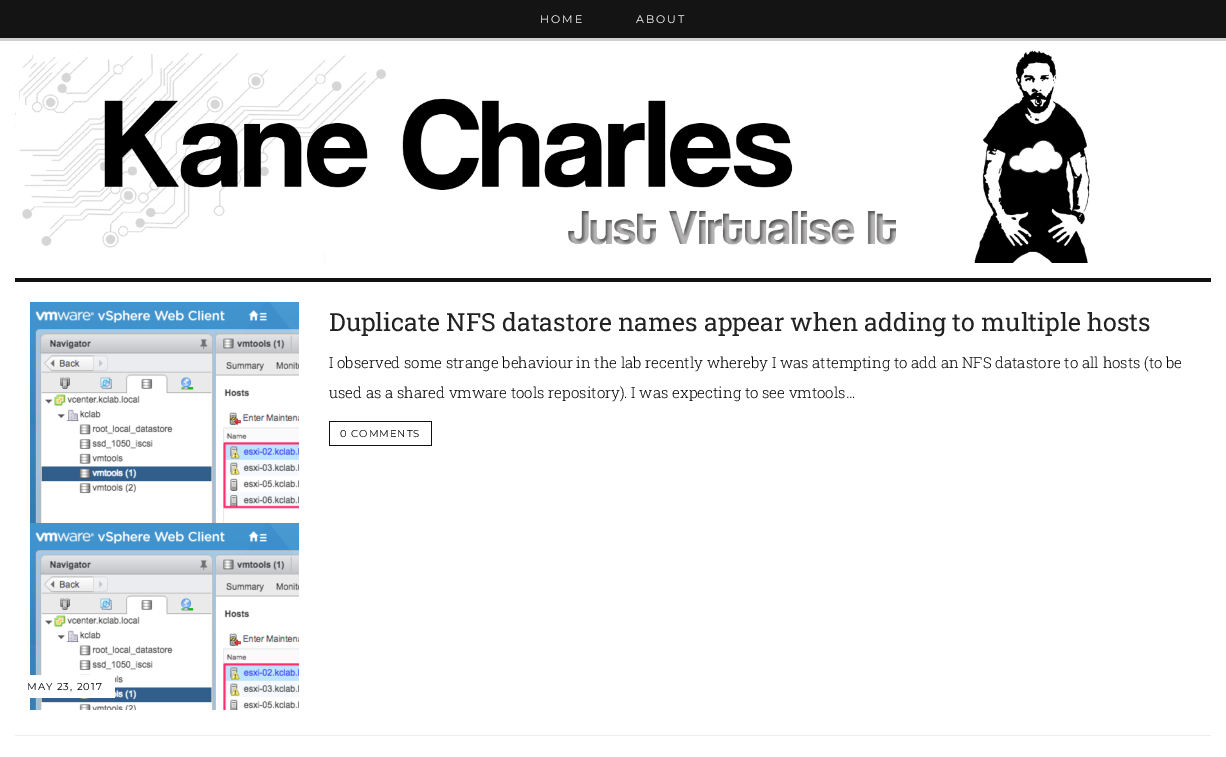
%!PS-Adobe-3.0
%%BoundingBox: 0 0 1226 757
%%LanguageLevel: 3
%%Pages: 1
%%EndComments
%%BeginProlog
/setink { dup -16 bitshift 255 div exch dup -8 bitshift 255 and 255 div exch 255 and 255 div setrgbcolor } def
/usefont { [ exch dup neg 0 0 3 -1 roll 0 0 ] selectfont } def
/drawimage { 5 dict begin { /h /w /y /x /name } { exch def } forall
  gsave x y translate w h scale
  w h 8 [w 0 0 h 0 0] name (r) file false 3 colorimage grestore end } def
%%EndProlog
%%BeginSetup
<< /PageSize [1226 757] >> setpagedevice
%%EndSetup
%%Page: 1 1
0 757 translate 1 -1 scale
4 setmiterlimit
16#FFFFFF setink
0 0 1226 757 rectfill
16#141414 setink
0 0 1226 38 rectfill
16#D0D0D0 setink
0 38 1226 3 rectfill
/Montserrat-Thin 11 usefont
16#FFFFFF setink
540 23 moveto 2 0 (HOME) ashow
636 23 moveto 2 0 (ABOUT) ashow
(img1.raw) 15 50 1075 213 drawimage
16#111111 setink
15 278 1196 4 rectfill
16#EEEEEE setink
15 735 1196 1 rectfill
/RobotoSlab-Regular 25 usefont
16#222222 setink
329 331 moveto (Duplicate NFS datastore names appear when adding to multiple hosts) show
/RobotoSlab-Light 15 usefont
16#000000 setink
329 368 moveto (I observed some strange behaviour in the lab recently whereby I was attempting to add an NFS datastore to all hosts \(to be) show
329 398 moveto (used as a shared vmware tools repository\). I was expecting to see vmtools…) show
/Montserrat-Thin 10 usefont
340 437 moveto 1 0 (0 COMMENTS) ashow
[
    [329 421 103 1 16#111111]
    [329 445 11 1 16#111111]
    [329 421 1 25 16#111111]
    [431 421 1 25 16#111111]
    [340 445 92 1 16#111111]
] { aload pop setink rectfill } forall
(img2.raw) 30 302 269 408 drawimage
16#FFFFFF setink
30 675 85 23 rectfill
16#000000 setink
27 690 moveto 1 0 (MAY 23, 2017) ashow
showpage
%%EOF
